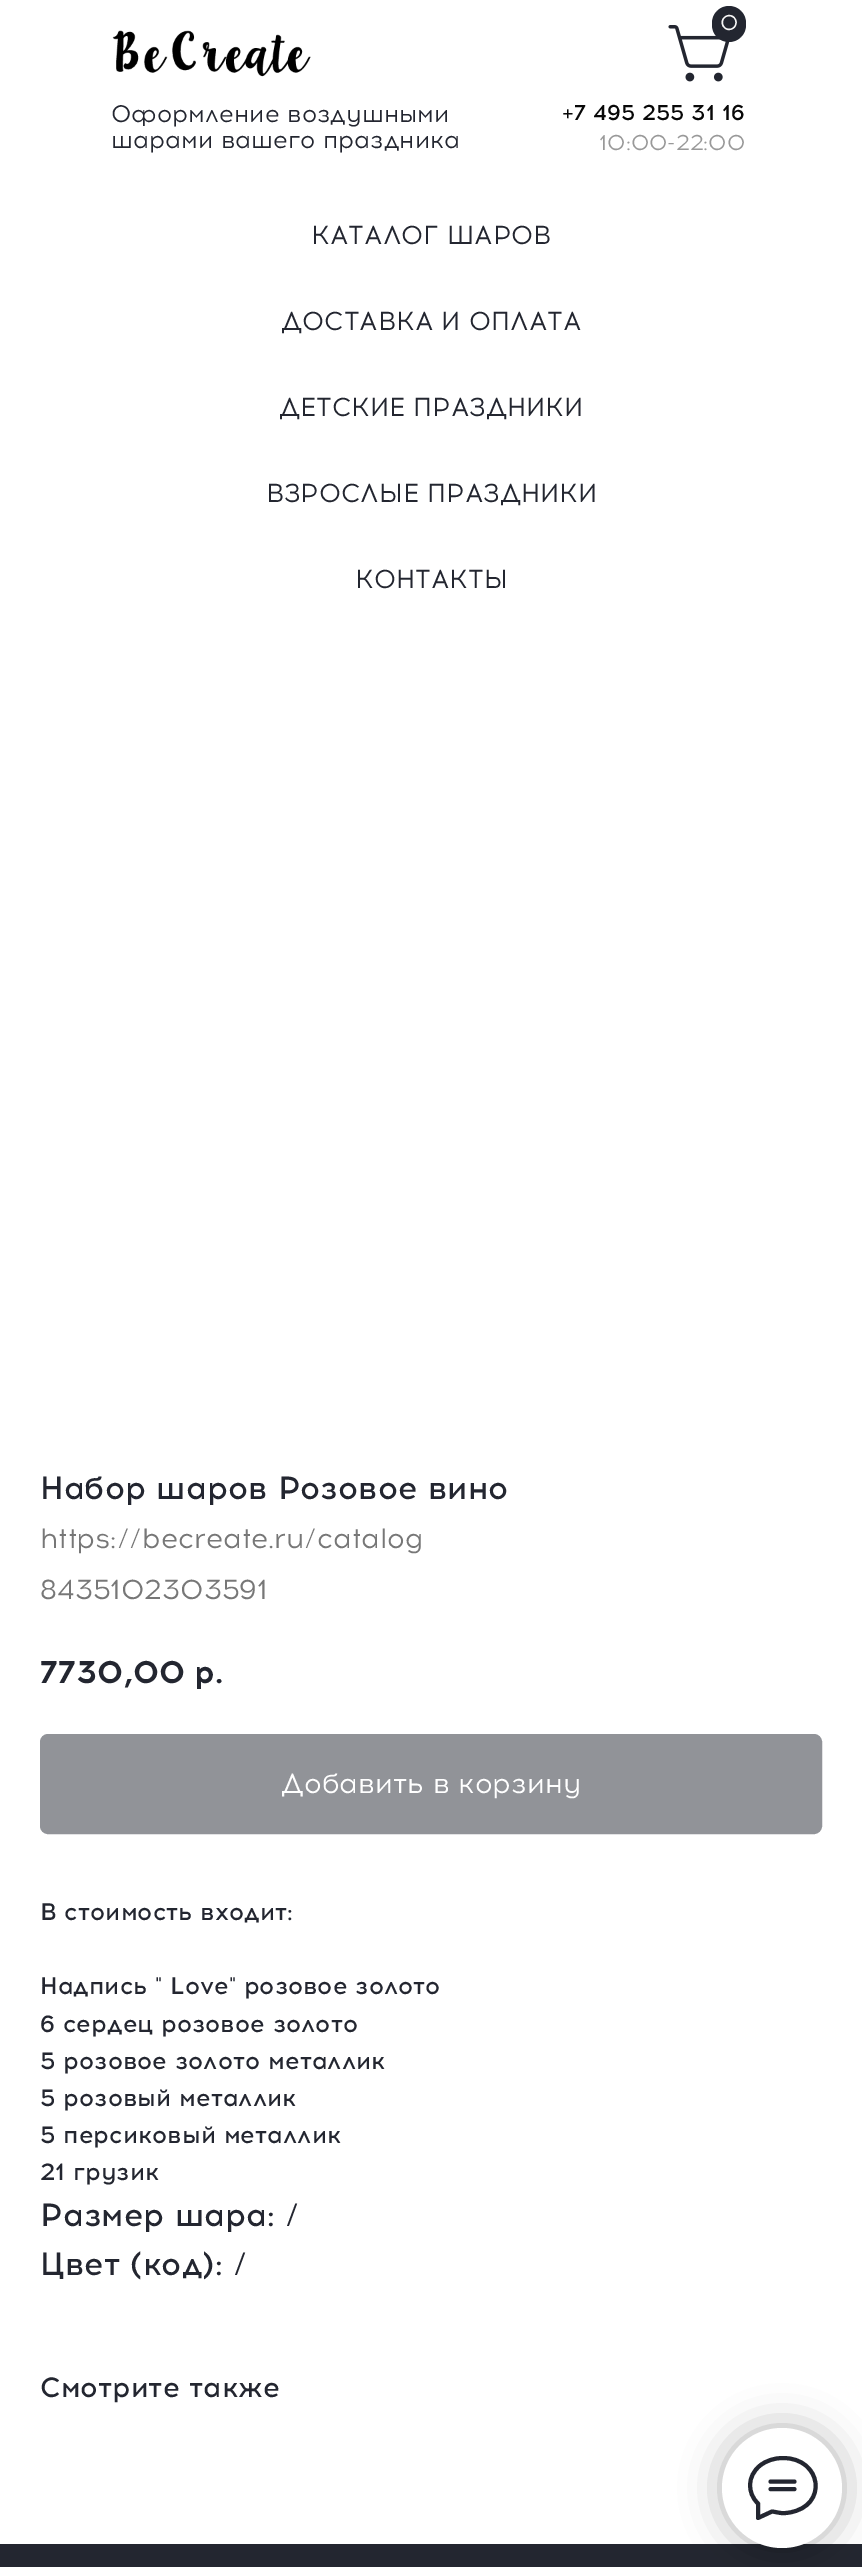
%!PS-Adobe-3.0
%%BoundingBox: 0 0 862 2567
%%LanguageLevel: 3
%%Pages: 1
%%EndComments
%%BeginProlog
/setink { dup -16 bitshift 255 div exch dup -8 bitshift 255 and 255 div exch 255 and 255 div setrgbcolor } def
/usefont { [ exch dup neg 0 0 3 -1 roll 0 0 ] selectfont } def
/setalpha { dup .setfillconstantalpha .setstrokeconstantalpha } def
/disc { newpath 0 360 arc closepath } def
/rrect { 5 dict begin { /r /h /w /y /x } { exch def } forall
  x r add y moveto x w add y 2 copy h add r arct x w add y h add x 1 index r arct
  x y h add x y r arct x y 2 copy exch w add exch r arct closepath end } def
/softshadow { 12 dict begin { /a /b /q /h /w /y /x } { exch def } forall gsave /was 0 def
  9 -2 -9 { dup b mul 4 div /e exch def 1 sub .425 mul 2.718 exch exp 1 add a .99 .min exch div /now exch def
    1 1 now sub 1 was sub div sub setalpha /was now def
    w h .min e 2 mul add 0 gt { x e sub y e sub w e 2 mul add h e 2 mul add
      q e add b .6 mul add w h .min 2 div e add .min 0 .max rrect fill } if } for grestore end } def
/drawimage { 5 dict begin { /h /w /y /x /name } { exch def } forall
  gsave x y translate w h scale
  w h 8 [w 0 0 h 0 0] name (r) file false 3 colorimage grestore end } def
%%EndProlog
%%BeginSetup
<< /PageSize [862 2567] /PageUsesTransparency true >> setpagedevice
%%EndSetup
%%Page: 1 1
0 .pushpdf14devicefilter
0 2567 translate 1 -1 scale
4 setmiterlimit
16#FFFFFF setink
0 0 862 2567 rectfill
(img2.raw) 668 25 62 57 drawimage
16#232630 setink
712 6 34 36 17 rrect fill
/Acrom-Regular 22 usefont
16#F7F7F7 setink
720 30 moveto (0) show
(img1.raw) 112 30 199 47 drawimage
/Acrom-Regular 24 usefont
16#232630 setink
111 122 moveto (Оформление воздушными) show
111 148 moveto (шарами вашего праздника) show
/Acrom-Medium 22 usefont
16#080808 setink
562 120 moveto (+7 495 255 31 16) show
/Acrom-Regular 22 usefont
16#999999 setink
599 150 moveto (10:00-22:00) show
/Acrom-Regular 26 usefont
16#232630 setink
[
    [(КАТАЛОГ ШАРОВ) 311 244]
    [(ДОСТАВКА И ОПЛАТА) 281 330]
    [(ДЕТСКИЕ ПРАЗДНИКИ) 279 416]
    [(ВЗРОСЛЫЕ ПРАЗДНИКИ) 266 502]
    [(КОНТАКТЫ) 355 588]
] { aload pop moveto show } forall
/Acrom-Medium 32 usefont
40 1499 moveto (Набор шаров Розовое вино) show
/Acrom-Regular 28 usefont
16#777777 setink
40 1548 moveto (https://becreate.ru/catalog) show
40 1599 moveto (8435102303591) show
/Acrom-Bold 32 usefont
16#232630 setink
40 1683 moveto (7730,00) show
194 1683 moveto (р.) show
16#919398 setink
41 1735 780 98 7 rrect gsave fill grestore
2 setlinewidth
stroke
/Acrom-Regular 28 usefont
16#FFFFFF setink
281 1793 moveto (Добавить в корзину) show
/Acrom-Medium 24 usefont
16#232630 setink
[
    [(В стоимость входит:) 40 1920]
    [(Надпись " Love" розовое золото) 40 1994]
    [(6 сердец розовое золото) 40 2032]
    [(5 розовое золото металлик) 40 2069]
    [(5 розовый металлик) 40 2106]
    [(5 персиковый металлик) 40 2143]
    [(21 грузик) 40 2180]
] { aload pop moveto show } forall
/Acrom-Medium 32 usefont
40 2226 moveto (Размер шара: /) show
40 2275 moveto (Цвет \(код\): /) show
/Acrom-Medium 28 usefont
40 2397 moveto (Смотрите также) show
0 2544 862 23 rectfill
16#000000 setink
722 2428 120 120 60 20 0.3 softshadow
16#FFFFFF setink
782 2488 60 disc fill
16#232630 setink
4 setlinewidth
1 setlinecap
1 setlinejoin
770.5 2481.5 moveto 794.5 2481.5 lineto 770.5 2489 moveto 794.5 2489 lineto 757.5 2503 moveto 747 2492.5 747.5 2476 759.5 2466 curveto 766 2460.5 774.5 2458 783 2458 curveto 822 2458 828.5 2506 789.5 2512.5 curveto 781 2514 779.5 2512.5 772 2511.5 curveto 758 2518 lineto 758 2503.5 lineto closepath stroke
.poppdf14devicefilter showpage
%%EOF
